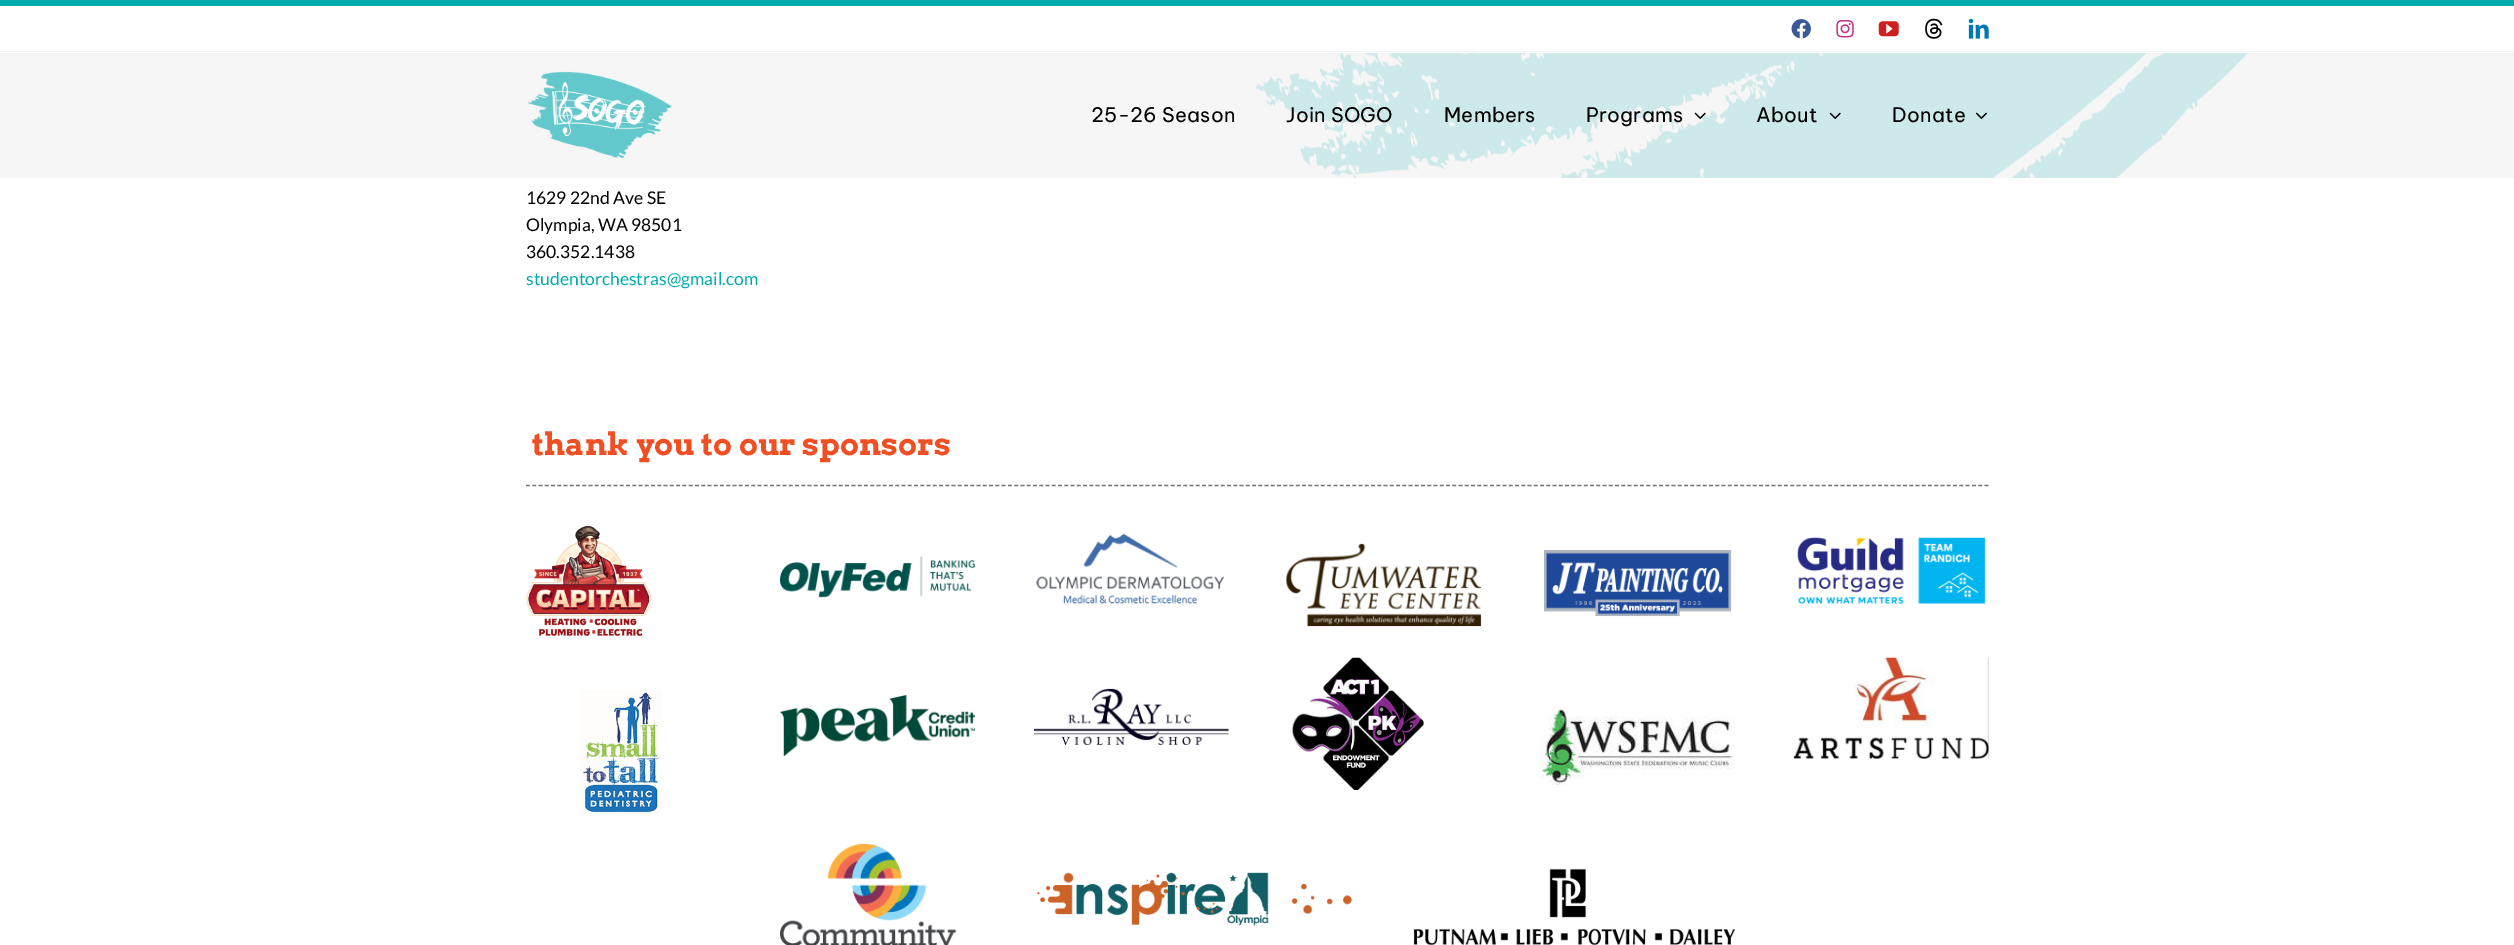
%!PS-Adobe-3.0
%%BoundingBox: 0 0 2514 945
%%LanguageLevel: 3
%%Pages: 1
%%EndComments
%%BeginProlog
/setink { dup -16 bitshift 255 div exch dup -8 bitshift 255 and 255 div exch 255 and 255 div setrgbcolor } def
/usefont { [ exch dup neg 0 0 3 -1 roll 0 0 ] selectfont } def
/drawimage { 5 dict begin { /h /w /y /x /name } { exch def } forall
  gsave x y translate w h scale
  w h 8 [w 0 0 h 0 0] name (r) file false 3 colorimage grestore end } def
%%EndProlog
%%BeginSetup
<< /PageSize [2514 945] >> setpagedevice
%%EndSetup
%%Page: 1 1
0 945 translate 1 -1 scale
4 setmiterlimit
16#FFFFFF setink
0 0 2514 945 rectfill
16#00AAAD setink
0 0 2514 6 rectfill
(img1.raw) 1791 19 20 20 drawimage
(img2.raw) 1836 20 18 18 drawimage
(img3.raw) 1878 21 21 16 drawimage
(img4.raw) 1925 18 18 21 drawimage
(img5.raw) 1968 18 21 21 drawimage
16#F6F6F6 setink
0 53 2514 125 rectfill
16#F1F6F9 setink
0 51 2514 1 rectfill
(img6.raw) 1256 53 992 125 drawimage
(img7.raw) 528 71 144 88 drawimage
/BeVietnamPro-Regular 20 usefont
16#000000 setink
1091 122 moveto 0.25 0 (25-26 Season) ashow
1286 122 moveto 0.25 0 (Join SOGO) ashow
1444 122 moveto 0.25 0 (Members) ashow
1586 122 moveto 0.25 0 (Programs) ashow
(img8.raw) 1694 112 12 8 drawimage
1756 122 moveto 0.25 0 (About) ashow
(img9.raw) 1829 112 12 8 drawimage
1892 122 moveto 0.25 0 (Donate) ashow
(img10.raw) 1975 112 12 8 drawimage
/Lato-Regular 17.5 usefont
[
    [(1629 22nd Ave SE) 526 204]
    [(Olympia, WA 98501) 526 231]
    [(360.352.1438) 526 258]
] { aload pop moveto show } forall
16#00AAAD setink
526 285 moveto (studentorchestras@gmail.com) show
16#747474 setink
1.2 setlinewidth
[3.75 2.51] 0 setdash
526 485.5 moveto 1989 485.5 lineto stroke
/Arvo-Bold 31.25 usefont
16#F04E23 setink
532 455 moveto (thank you to our sponsors) show
(img11.raw) 526 525 126 111 drawimage
(img12.raw) 780 556 195 42 drawimage
(img13.raw) 1035 533 190 72 drawimage
(img14.raw) 1286 543 196 84 drawimage
(img15.raw) 1543 550 189 67 drawimage
(img16.raw) 1797 537 188 67 drawimage
(img17.raw) 580 690 82 124 drawimage
(img18.raw) 780 695 195 62 drawimage
(img19.raw) 1033 688 196 57 drawimage
(img20.raw) 1291 657 133 133 drawimage
(img21.raw) 1540 707 195 78 drawimage
(img22.raw) 1793 657 196 102 drawimage
(img23.raw) 780 843 177 102 drawimage
(img24.raw) 1037 872 315 54 drawimage
(img25.raw) 1413 868 322 77 drawimage
showpage
%%EOF
